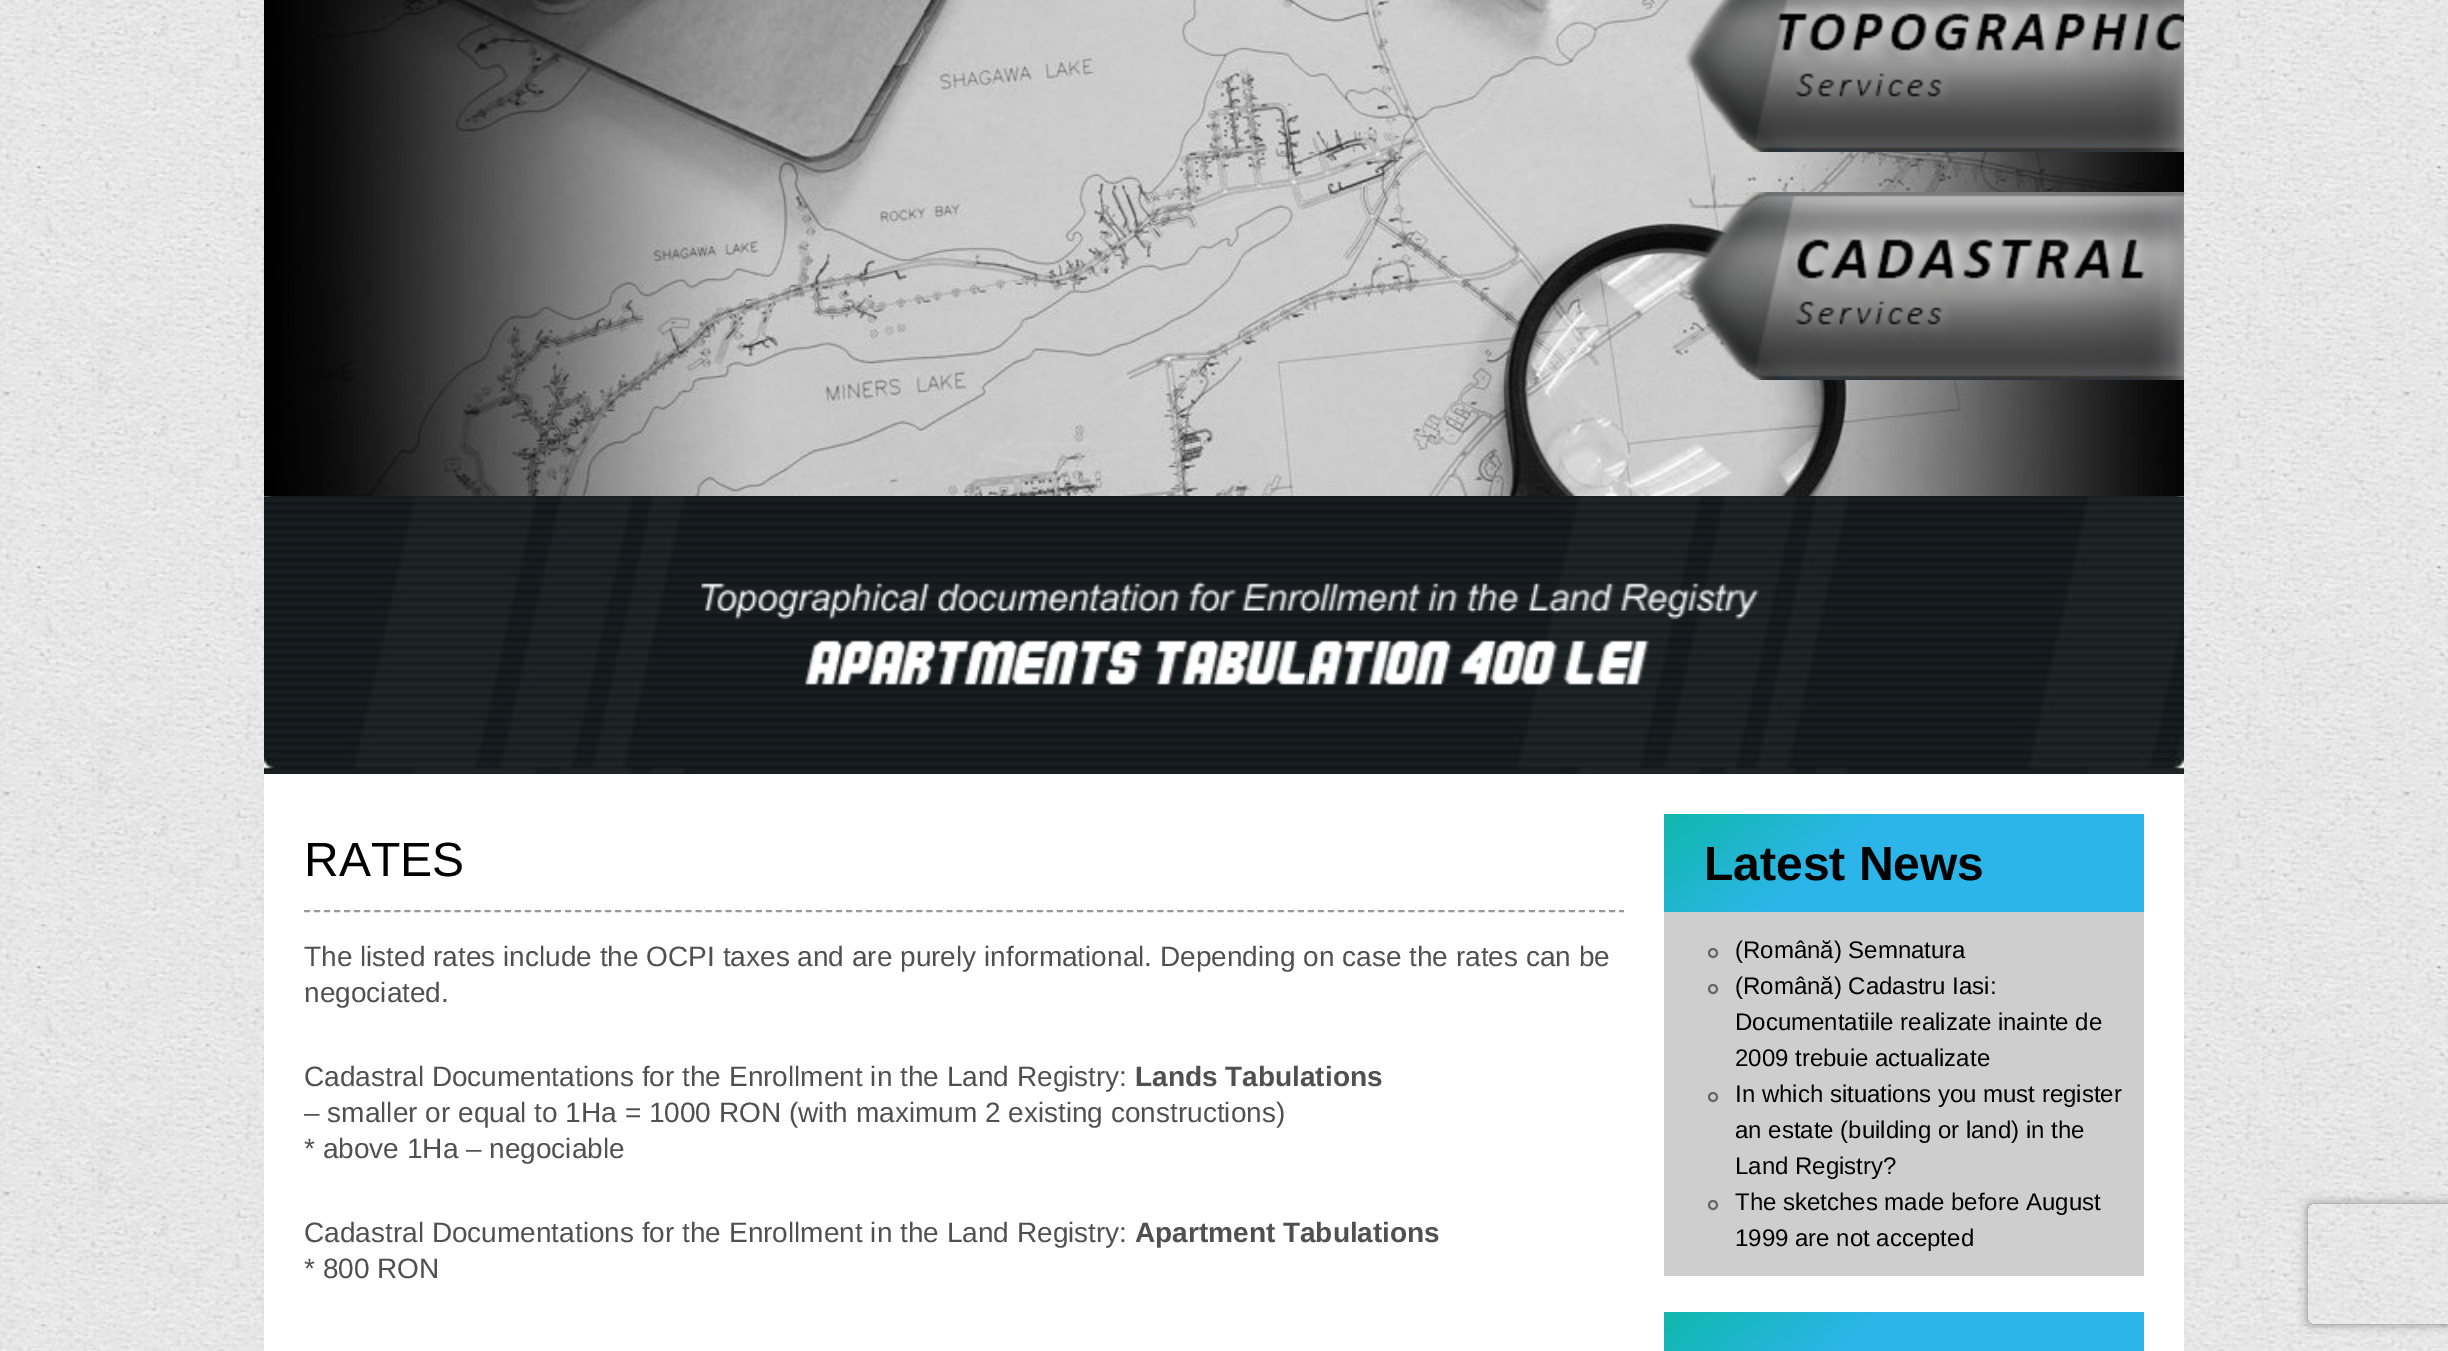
%!PS-Adobe-3.0
%%BoundingBox: 0 0 2448 1351
%%LanguageLevel: 3
%%Pages: 1
%%EndComments
%%BeginProlog
/setink { dup -16 bitshift 255 div exch dup -8 bitshift 255 and 255 div exch 255 and 255 div setrgbcolor } def
/usefont { [ exch dup neg 0 0 3 -1 roll 0 0 ] selectfont } def
/setalpha { dup .setfillconstantalpha .setstrokeconstantalpha } def
/disc { newpath 0 360 arc closepath } def
/rrect { 5 dict begin { /r /h /w /y /x } { exch def } forall
  x r add y moveto x w add y 2 copy h add r arct x w add y h add x 1 index r arct
  x y h add x y r arct x y 2 copy exch w add exch r arct closepath end } def
/softshadow { 12 dict begin { /a /b /q /h /w /y /x } { exch def } forall gsave /was 0 def
  9 -2 -9 { dup b mul 4 div /e exch def 1 sub .425 mul 2.718 exch exp 1 add a .99 .min exch div /now exch def
    1 1 now sub 1 was sub div sub setalpha /was now def
    w h .min e 2 mul add 0 gt { x e sub y e sub w e 2 mul add h e 2 mul add
      q e add b .6 mul add w h .min 2 div e add .min 0 .max rrect fill } if } for grestore end } def
/drawimage { 5 dict begin { /h /w /y /x /name } { exch def } forall
  gsave x y translate w h scale
  w h 8 [w 0 0 h 0 0] name (r) file false 3 colorimage grestore end } def
%%EndProlog
%%BeginSetup
<< /PageSize [2448 1351] /PageUsesTransparency true >> setpagedevice
%%EndSetup
%%Page: 1 1
0 .pushpdf14devicefilter
0 1351 translate 1 -1 scale
4 setmiterlimit
16#FFFFFF setink
0 0 2448 1351 rectfill
(img1.raw) 0 0 2448 1351 drawimage
264 774 1920 577 rectfill
(img2.raw) 264 0 1920 496 drawimage
(img3.raw) 1684 0 500 152 drawimage
(img4.raw) 1684 192 500 188 drawimage
(img5.raw) 264 496 1920 278 drawimage
(img6.raw) 701 581 1059 104 drawimage
16#999999 setink
2 setlinewidth
[6 4.04] 0 setdash
304 911 moveto 1624 911 lineto stroke
/LiberationSans-Regular 48 usefont
16#000000 setink
304 876 moveto (RATES) show
/LiberationSans-Regular 28 usefont
16#505050 setink
[
    [(The listed rates include the OCPI taxes and are purely informational. Depending on case the rates can be) 304 966]
    [(negociated.) 304 1002]
    [(Cadastral Documentations for the Enrollment in the Land Registry:) 304 1086]
] { aload pop moveto show } forall
/LiberationSans-Bold 28 usefont
1135 1086 moveto (Lands Tabulations) show
/LiberationSans-Regular 28 usefont
[
    [(– smaller or equal to 1Ha = 1000 RON \(with maximum 2 existing constructions\)) 304 1122]
    [(* above 1Ha – negociable) 304 1158]
    [(Cadastral Documentations for the Enrollment in the Land Registry:) 304 1242]
] { aload pop moveto show } forall
/LiberationSans-Bold 28 usefont
1135 1242 moveto (Apartment Tabulations) show
/LiberationSans-Regular 28 usefont
304 1278 moveto (* 800 RON) show
16#CFCECE setink
1664 912 480 364 rectfill
gsave 1664 814 moveto 2144 814 lineto 2144 912 lineto 1664 912 lineto closepath clip newpath
<< /ShadingType 2 /ColorSpace /DeviceRGB /Coords [1785 716 2023 1010] /Extend [true true] /Function << /FunctionType 3 /Domain [0 1] /Functions [<< /FunctionType 2 /Domain [0 1] /C0 [0.059 0.722 0.678] /C1 [0.173 0.71 0.91] /N 1 >> << /FunctionType 2 /Domain [0 1] /C0 [0.173 0.71 0.91] /C1 [0.173 0.71 0.91] /N 1 >>] /Bounds [0.37] /Encode [0 1 0 1] >> >> shfill grestore
/LiberationSans-Bold 48 usefont
16#000000 setink
1704 880 moveto (Latest News) show
16#666666 setink
[] 0 setdash
1713 953 4 disc stroke
/LiberationSans-Regular 24 usefont
16#000000 setink
1735 958 moveto (\(Română\) Semnatura) show
16#666666 setink
1713 989 4 disc stroke
16#000000 setink
[
    [(\(Română\) Cadastru Iasi:) 1735 994]
    [(Documentatiile realizate inainte de) 1735 1030]
    [(2009 trebuie actualizate) 1735 1066]
] { aload pop moveto show } forall
16#666666 setink
1713 1097 4 disc stroke
16#000000 setink
[
    [(In which situations you must register) 1735 1102]
    [(an estate \(building or land\) in the) 1735 1138]
    [(Land Registry?) 1735 1174]
] { aload pop moveto show } forall
16#666666 setink
1713 1205 4 disc stroke
16#000000 setink
1735 1210 moveto (The sketches made before August) show
1735 1246 moveto (1999 are not accepted) show
gsave 1664 1312 moveto 2144 1312 lineto 2144 1351 lineto 1664 1351 lineto closepath clip newpath
<< /ShadingType 2 /ColorSpace /DeviceRGB /Coords [1785 1214 2023 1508] /Extend [true true] /Function << /FunctionType 3 /Domain [0 1] /Functions [<< /FunctionType 2 /Domain [0 1] /C0 [0.059 0.722 0.678] /C1 [0.173 0.71 0.91] /N 1 >> << /FunctionType 2 /Domain [0 1] /C0 [0.173 0.71 0.91] /C1 [0.173 0.71 0.91] /N 1 >>] /Bounds [0.37] /Encode [0 1 0 1] >> >> shfill grestore
gsave
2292 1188 moveto 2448 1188 lineto 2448 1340 lineto 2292 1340 lineto closepath 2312 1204 moveto 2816 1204 lineto 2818 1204 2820 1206 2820 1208 curveto 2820 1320 lineto 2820 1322 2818 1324 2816 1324 curveto 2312 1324 lineto 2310 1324 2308 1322 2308 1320 curveto 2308 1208 lineto 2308 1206 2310 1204 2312 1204 curveto closepath eoclip newpath
16#808080 setink
2308 1204 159 120 4 5 1 softshadow
grestore
.poppdf14devicefilter showpage
%%EOF
